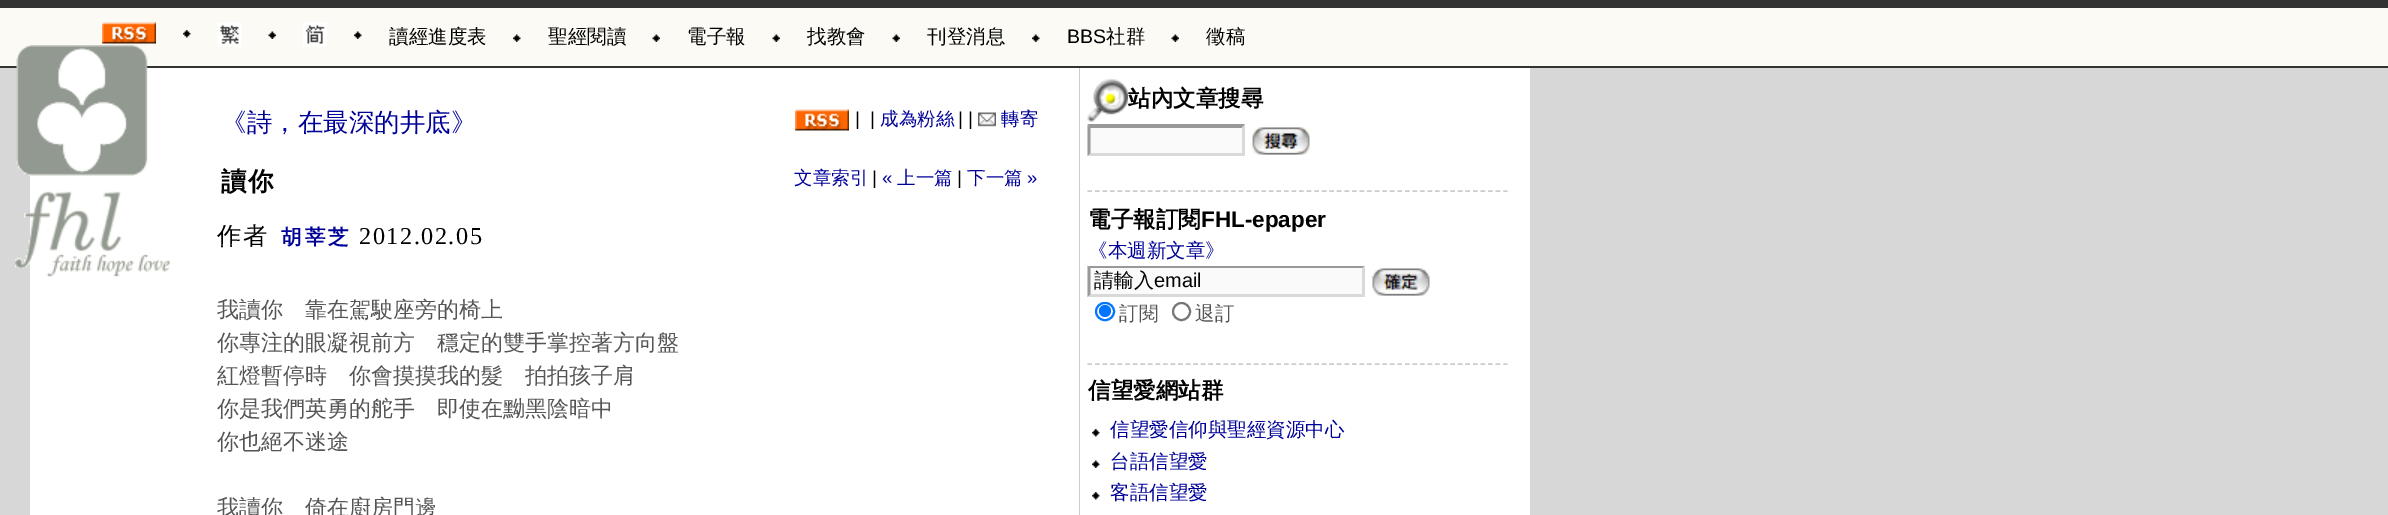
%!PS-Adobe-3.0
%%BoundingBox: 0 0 2388 515
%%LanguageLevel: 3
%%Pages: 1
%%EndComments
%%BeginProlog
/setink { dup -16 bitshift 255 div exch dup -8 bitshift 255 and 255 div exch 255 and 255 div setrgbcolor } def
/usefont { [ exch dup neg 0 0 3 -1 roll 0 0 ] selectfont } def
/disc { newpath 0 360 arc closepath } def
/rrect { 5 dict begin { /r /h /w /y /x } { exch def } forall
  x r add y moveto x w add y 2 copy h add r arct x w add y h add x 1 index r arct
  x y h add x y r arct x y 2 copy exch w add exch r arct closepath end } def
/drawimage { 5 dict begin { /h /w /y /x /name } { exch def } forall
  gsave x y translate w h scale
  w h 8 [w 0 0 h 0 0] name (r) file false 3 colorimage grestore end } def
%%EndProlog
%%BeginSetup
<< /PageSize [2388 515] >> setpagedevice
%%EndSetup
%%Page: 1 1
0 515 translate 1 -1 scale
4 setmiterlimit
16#D7D7D7 setink
0 0 2388 515 rectfill
[
    [0 8 2388 58 16#FBFAF4]
    [0 0 2388 8 16#333333]
    [0 66 2388 2 16#333333]
] { aload pop setink rectfill } forall
(img1.raw) 183 30 8 8 drawimage
(img2.raw) 102 22 54 22 drawimage
(img3.raw) 268 31 8 8 drawimage
(img4.raw) 217 22 25 25 drawimage
(img5.raw) 354 31 8 8 drawimage
(img6.raw) 303 22 24 25 drawimage
(img7.raw) 513 34 8 8 drawimage
/WenQuanYiZenHei-Medium 19.5 usefont
16#000000 setink
389 43 moveto (讀經進度表) show
(img8.raw) 652 34 8 8 drawimage
548 43 moveto (聖經閱讀) show
(img3.raw) 772 34 8 8 drawimage
687 43 moveto (電子報) show
(img3.raw) 892 34 8 8 drawimage
807 43 moveto (找教會) show
(img5.raw) 1032 34 8 8 drawimage
927 43 moveto (刊登消息) show
(img8.raw) 1171 34 8 8 drawimage
/LiberationSans-Regular 19.5 usefont
1067 43 moveto (BBS) show
/WenQuanYiZenHei-Medium 19.5 usefont
1106 43 moveto (社群) show
1206 43 moveto (徵稿) show
16#FFFFFF setink
30 68 1500 447 rectfill
(img9.raw) 15 45 155 232 drawimage
16#CCCCCC setink
1079 68 1 447 rectfill
/WenQuanYiZenHei-Medium 25.5 usefont
16#000099 setink
221 131 moveto (《詩，在最深的井底》) show
(img10.raw) 795 109 54 22 drawimage
/LiberationSans-Regular 18.5 usefont
16#000000 setink
855 125 moveto (|) show
870 125 moveto (|) show
/WenQuanYiZenHei-Medium 18.5 usefont
16#000099 setink
880 125 moveto (成為粉絲) show
/LiberationSans-Regular 18.5 usefont
16#000000 setink
958 125 moveto (| |) show
(img11.raw) 978 112 18 15 drawimage
/WenQuanYiZenHei-Medium 18.5 usefont
16#000099 setink
1001 125 moveto (轉寄) show
/WenQuanYiZenHei-Bold 25.5 usefont
16#000000 setink
221 190 moveto 1.5 0 (讀你) ashow
/WenQuanYiZenHei-Medium 18.5 usefont
16#000099 setink
794 184 moveto (文章索引) show
/LiberationSans-Regular 18.5 usefont
16#000000 setink
872 184 moveto (|) show
16#000099 setink
882 184 moveto («) show
/WenQuanYiZenHei-Medium 18.5 usefont
897 184 moveto (上一篇) show
/LiberationSans-Regular 18.5 usefont
16#000000 setink
957 184 moveto (|) show
/WenQuanYiZenHei-Medium 18.5 usefont
16#000099 setink
967 184 moveto (下一篇) show
/LiberationSans-Regular 18.5 usefont
1027 184 moveto (») show
/WenQuanYiZenHei-Medium 24.25 usefont
16#000000 setink
217 244 moveto 1.5 0 (作者) ashow
/WenQuanYiZenHei-Bold 20.5 usefont
16#000099 setink
281 244 moveto 3 0 (胡莘芝) ashow
/LiberationSerif-Regular 24.25 usefont
16#000000 setink
359 244 moveto 1.5 0 (2012.02.05) ashow
/WenQuanYiZenHei-Medium 22 usefont
16#555555 setink
[
    [(我讀你　靠在駕駛座旁的椅上) 217 317]
    [(你專注的眼凝視前方　穩定的雙手掌控著方向盤) 217 350]
    [(紅燈暫停時　你會摸摸我的髮　拍拍孩子肩) 217 383]
    [(你是我們英勇的舵手　即使在黝黑陰暗中) 217 416]
    [(你也絕不迷途) 217 449]
    [(我讀你　倚在廚房門邊) 217 515]
] { aload pop moveto show } forall
(img12.raw) 1087 79 41 43 drawimage
/WenQuanYiZenHei-Bold 22.5 usefont
16#000000 setink
1128 106 moveto (站內文章搜尋) show
16#FBFAFA setink
1088 125 157 31 rectfill
16#999999 setink
1088 124 moveto 1245 124 lineto 1242 128 lineto 1090 128 lineto closepath fill
16#D9D9D9 setink
1245 124.5 moveto 1245 156 lineto 1242 153 lineto 1242 127.5 lineto closepath fill
1245 156 moveto 1088 156 lineto 1090 153 lineto 1242 153 lineto closepath fill
16#999999 setink
1087.5 156 moveto 1087.5 124.5 lineto 1090.5 127.5 lineto 1090.5 153 lineto closepath fill
(img13.raw) 1252 127 58 28 drawimage
16#CCCCCC setink
1.5 setlinewidth
[4.5 3.06] 0 setdash
1087.5 191 moveto 1507.5 191 lineto stroke
16#000000 setink
1088 227 moveto (電子報訂閱) show
/LiberationSans-Bold 22.5 usefont
1201 227 moveto (FHL-epaper) show
/WenQuanYiZenHei-Medium 19.5 usefont
16#000099 setink
1088 257 moveto (《本週新文章》) show
16#FBFAFA setink
1088 266 277 31 rectfill
16#999999 setink
1088 266 moveto 1365 266 lineto 1362 268 lineto 1090 268 lineto closepath fill
16#D9D9D9 setink
1365 265.5 moveto 1365 297 lineto 1362 294 lineto 1362 268.5 lineto closepath fill
1365 297 moveto 1088 297 lineto 1090 294 lineto 1362 294 lineto closepath fill
16#999999 setink
1087.5 297 moveto 1087.5 265.5 lineto 1090.5 268.5 lineto 1090.5 294 lineto closepath fill
/WenQuanYiZenHei-Medium 20 usefont
16#000000 setink
1094 287 moveto (請輸入) show
/LiberationSans-Regular 20 usefont
1154 287 moveto (email) show
(img14.raw) 1372 268 58 28 drawimage
16#0075FF setink
2 setlinewidth
[] 0 setdash
1096 303 18 17 8.5 rrect stroke
1105 311 6 disc fill
/WenQuanYiZenHei-Medium 19.5 usefont
16#555555 setink
1119 320 moveto (訂閱) show
16#767676 setink
1181.5 311.5 8.5 disc stroke
16#555555 setink
1195 320 moveto (退訂) show
16#CCCCCC setink
1.5 setlinewidth
[4.5 3.06] 0 setdash
1087.5 364 moveto 1507.5 364 lineto stroke
/WenQuanYiZenHei-Bold 22.5 usefont
16#000000 setink
1088 398 moveto (信望愛網站群) show
(img15.raw) 1092 429 8 8 drawimage
/WenQuanYiZenHei-Medium 19.5 usefont
16#000099 setink
1110 436 moveto (信望愛信仰與聖經資源中心) show
(img16.raw) 1092 460 8 8 drawimage
1110 468 moveto (台語信望愛) show
(img15.raw) 1092 492 8 8 drawimage
1110 499 moveto (客語信望愛) show
showpage
%%EOF
